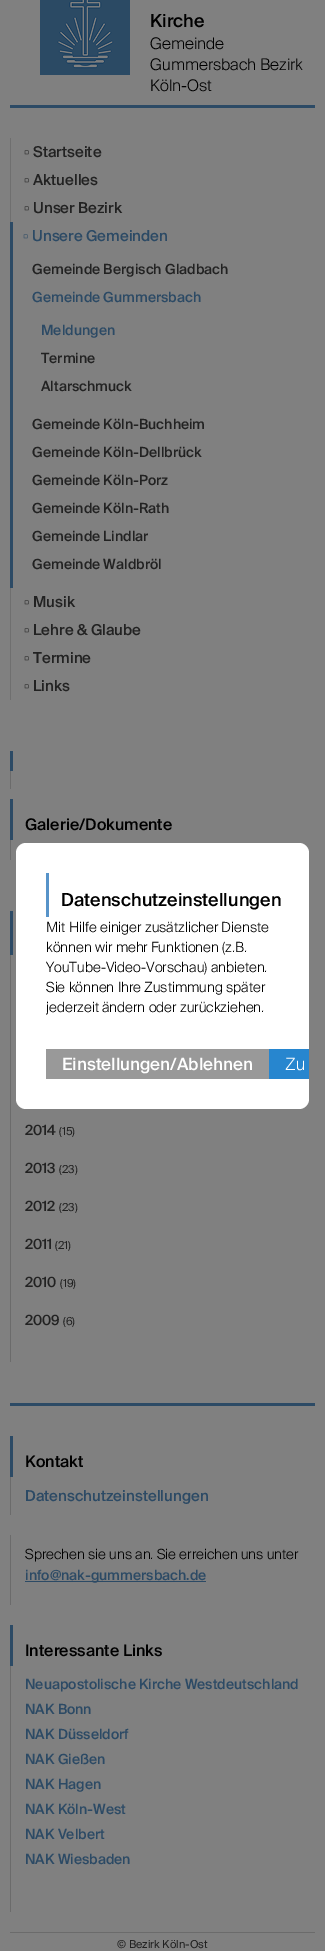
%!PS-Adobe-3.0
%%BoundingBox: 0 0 325 1951
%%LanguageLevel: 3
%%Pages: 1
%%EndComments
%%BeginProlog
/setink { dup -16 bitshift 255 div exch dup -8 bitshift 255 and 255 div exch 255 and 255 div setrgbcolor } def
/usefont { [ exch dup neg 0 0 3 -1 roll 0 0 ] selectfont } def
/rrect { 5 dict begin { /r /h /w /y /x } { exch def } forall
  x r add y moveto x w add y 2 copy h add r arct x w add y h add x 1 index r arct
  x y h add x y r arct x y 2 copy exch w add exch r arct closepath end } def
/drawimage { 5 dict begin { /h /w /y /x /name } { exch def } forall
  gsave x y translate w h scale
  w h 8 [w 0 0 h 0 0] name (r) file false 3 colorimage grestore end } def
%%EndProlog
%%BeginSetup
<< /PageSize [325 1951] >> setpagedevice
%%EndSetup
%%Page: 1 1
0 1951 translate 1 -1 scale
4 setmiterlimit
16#808080 setink
0 0 325 1951 rectfill
(img1.raw) 40 0 90 75 drawimage
/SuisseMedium-Medium 18 usefont
16#000000 setink
150 27 moveto (Kirche) show
/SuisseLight-Light 16 usefont
[
    [(Gemeinde) 150 49]
    [(Gummersbach Bezirk) 150 70]
    [(Köln-Ost) 150 91]
] { aload pop moveto show } forall
16#2C4A65 setink
10 105 305 3 rectfill
16#6F6F6F setink
10 138 1 84 rectfill
/LiberationSerif-Regular 15 usefont
16#222222 setink
24 157 moveto (▫) show
/SuisseMedium-Medium 15 usefont
33 157 moveto (Startseite) show
/LiberationSerif-Regular 15 usefont
24 185 moveto (▫) show
/SuisseMedium-Medium 15 usefont
33 185 moveto (Aktuelles) show
/LiberationSerif-Regular 15 usefont
24 213 moveto (▫) show
/SuisseMedium-Medium 15 usefont
33 213 moveto (Unser Bezirk) show
16#2C4A65 setink
10 222 3 366 rectfill
/LiberationSerif-Regular 15 usefont
23 241 moveto (▫) show
/SuisseMedium-Medium 15 usefont
32 241 moveto (Unsere Gemeinden) show
/SuisseMedium-Medium 14 usefont
16#222222 setink
32 274 moveto (Gemeinde Bergisch Gladbach) show
16#2C4A65 setink
32 302 moveto (Gemeinde Gummersbach) show
41 335 moveto (Meldungen) show
16#222222 setink
[
    [(Termine) 41 363]
    [(Altarschmuck) 41 391]
    [(Gemeinde Köln-Buchheim) 32 429]
    [(Gemeinde Köln-Dellbrück) 32 457]
    [(Gemeinde Köln-Porz) 32 485]
    [(Gemeinde Köln-Rath) 32 513]
    [(Gemeinde Lindlar) 32 541]
    [(Gemeinde Waldbröl) 32 569]
] { aload pop moveto show } forall
16#6F6F6F setink
10 588 1 112 rectfill
/LiberationSerif-Regular 15 usefont
16#222222 setink
24 607 moveto (▫) show
/SuisseMedium-Medium 15 usefont
33 607 moveto (Musik) show
/LiberationSerif-Regular 15 usefont
24 635 moveto (▫) show
/SuisseMedium-Medium 15 usefont
33 635 moveto (Lehre & Glaube) show
/LiberationSerif-Regular 15 usefont
24 663 moveto (▫) show
/SuisseMedium-Medium 15 usefont
33 663 moveto (Termine) show
/LiberationSerif-Regular 15 usefont
24 691 moveto (▫) show
/SuisseMedium-Medium 15 usefont
33 691 moveto (Links) show
[
    [10 751 3 20 16#2C4A65]
    [10 771 1 18 16#6B6B6B]
    [10 799 3 41 16#2C4A65]
] { aload pop setink rectfill } forall
/SuisseMedium-Medium 16 usefont
16#000000 setink
25 830 moveto (Galerie/Dokumente) show
[
    [10 840 1 20 16#6B6B6B]
    [10 911 3 44 16#2C4A65]
    [10 955 1 407 16#6B6B6B]
] { aload pop setink rectfill } forall
/SuisseMedium-Medium 14 usefont
16#222222 setink
25 1135 moveto (2014) show
/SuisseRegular-Regular 11 usefont
59 1135 moveto (\(15\)) show
/SuisseMedium-Medium 14 usefont
25 1173 moveto (2013) show
/SuisseRegular-Regular 11 usefont
59 1173 moveto (\(23\)) show
/SuisseMedium-Medium 14 usefont
25 1211 moveto (2012) show
/SuisseRegular-Regular 11 usefont
59 1211 moveto (\(23\)) show
/SuisseMedium-Medium 14 usefont
25 1249 moveto (2011) show
/SuisseRegular-Regular 11 usefont
55 1249 moveto (\(21\)) show
/SuisseMedium-Medium 14 usefont
25 1287 moveto (2010) show
/SuisseRegular-Regular 11 usefont
60 1287 moveto (\(19\)) show
/SuisseMedium-Medium 14 usefont
25 1325 moveto (2009) show
/SuisseRegular-Regular 11 usefont
63 1325 moveto (\(6\)) show
16#FFFFFF setink
16 843 293 266 10 rrect fill
16#5793C9 setink
46 873 3 44 rectfill
/SuisseMedium-Medium 18 usefont
16#000000 setink
61 906 moveto (Datenschutzeinstellungen) show
/SuisseLight-Light 14 usefont
[
    [(Mit Hilfe einiger zusätzlicher Dienste) 46 932]
    [(können wir mehr Funktionen \(z.B.) 46 952]
    [(YouTube-Video-Vorschau\) anbieten.) 46 972]
    [(Sie können Ihre Zustimmung später) 46 992]
    [(jederzeit ändern oder zurückziehen.) 46 1012]
] { aload pop moveto show } forall
16#999999 setink
46 1049 223 30 rectfill
/SuisseMedium-Medium 17 usefont
16#FFFFFF setink
62 1070 moveto (Einstellungen/Ablehnen) show
16#2786CF setink
269 1049 40 30 rectfill
/SuisseLight-Light 17 usefont
16#FFFFFF setink
285 1070 moveto (Zu) show
16#2C4A65 setink
10 1403 305 3 rectfill
10 1436 3 41 rectfill
/SuisseMedium-Medium 16 usefont
16#000000 setink
25 1467 moveto (Kontakt) show
16#6B6B6B setink
10 1477 1 38 rectfill
/SuisseMedium-Medium 15 usefont
16#2C4A65 setink
25 1501 moveto (Datenschutzeinstellungen) show
16#6B6B6B setink
10 1535 1 70 rectfill
/SuisseLight-Light 14 usefont
16#000000 setink
25 1559 moveto (Sprechen sie uns an. Sie erreichen uns unter) show
16#2C4A65 setink
25 1581 181 1 rectfill
/SuisseMedium-Medium 14 usefont
25 1580 moveto (info@nak-gummersbach.de) show
10 1625 3 41 rectfill
/SuisseMedium-Medium 16 usefont
16#000000 setink
25 1656 moveto (Interessante Links) show
16#6B6B6B setink
10 1666 1 246 rectfill
/SuisseMedium-Medium 14 usefont
16#2C4A65 setink
[
    [(Neuapostolische Kirche Westdeutschland) 25 1689]
    [(NAK Bonn) 25 1714]
    [(NAK Düsseldorf) 25 1739]
    [(NAK Gießen) 25 1764]
    [(NAK Hagen) 25 1789]
    [(NAK Köln-West) 25 1814]
    [(NAK Velbert) 25 1839]
    [(NAK Wiesbaden) 25 1864]
] { aload pop moveto show } forall
16#6B6B6B setink
10 1932 305 1 rectfill
/SuisseRegular-Regular 11 usefont
16#222222 setink
117 1948 moveto (© Bezirk Köln-Ost) show
showpage
%%EOF
